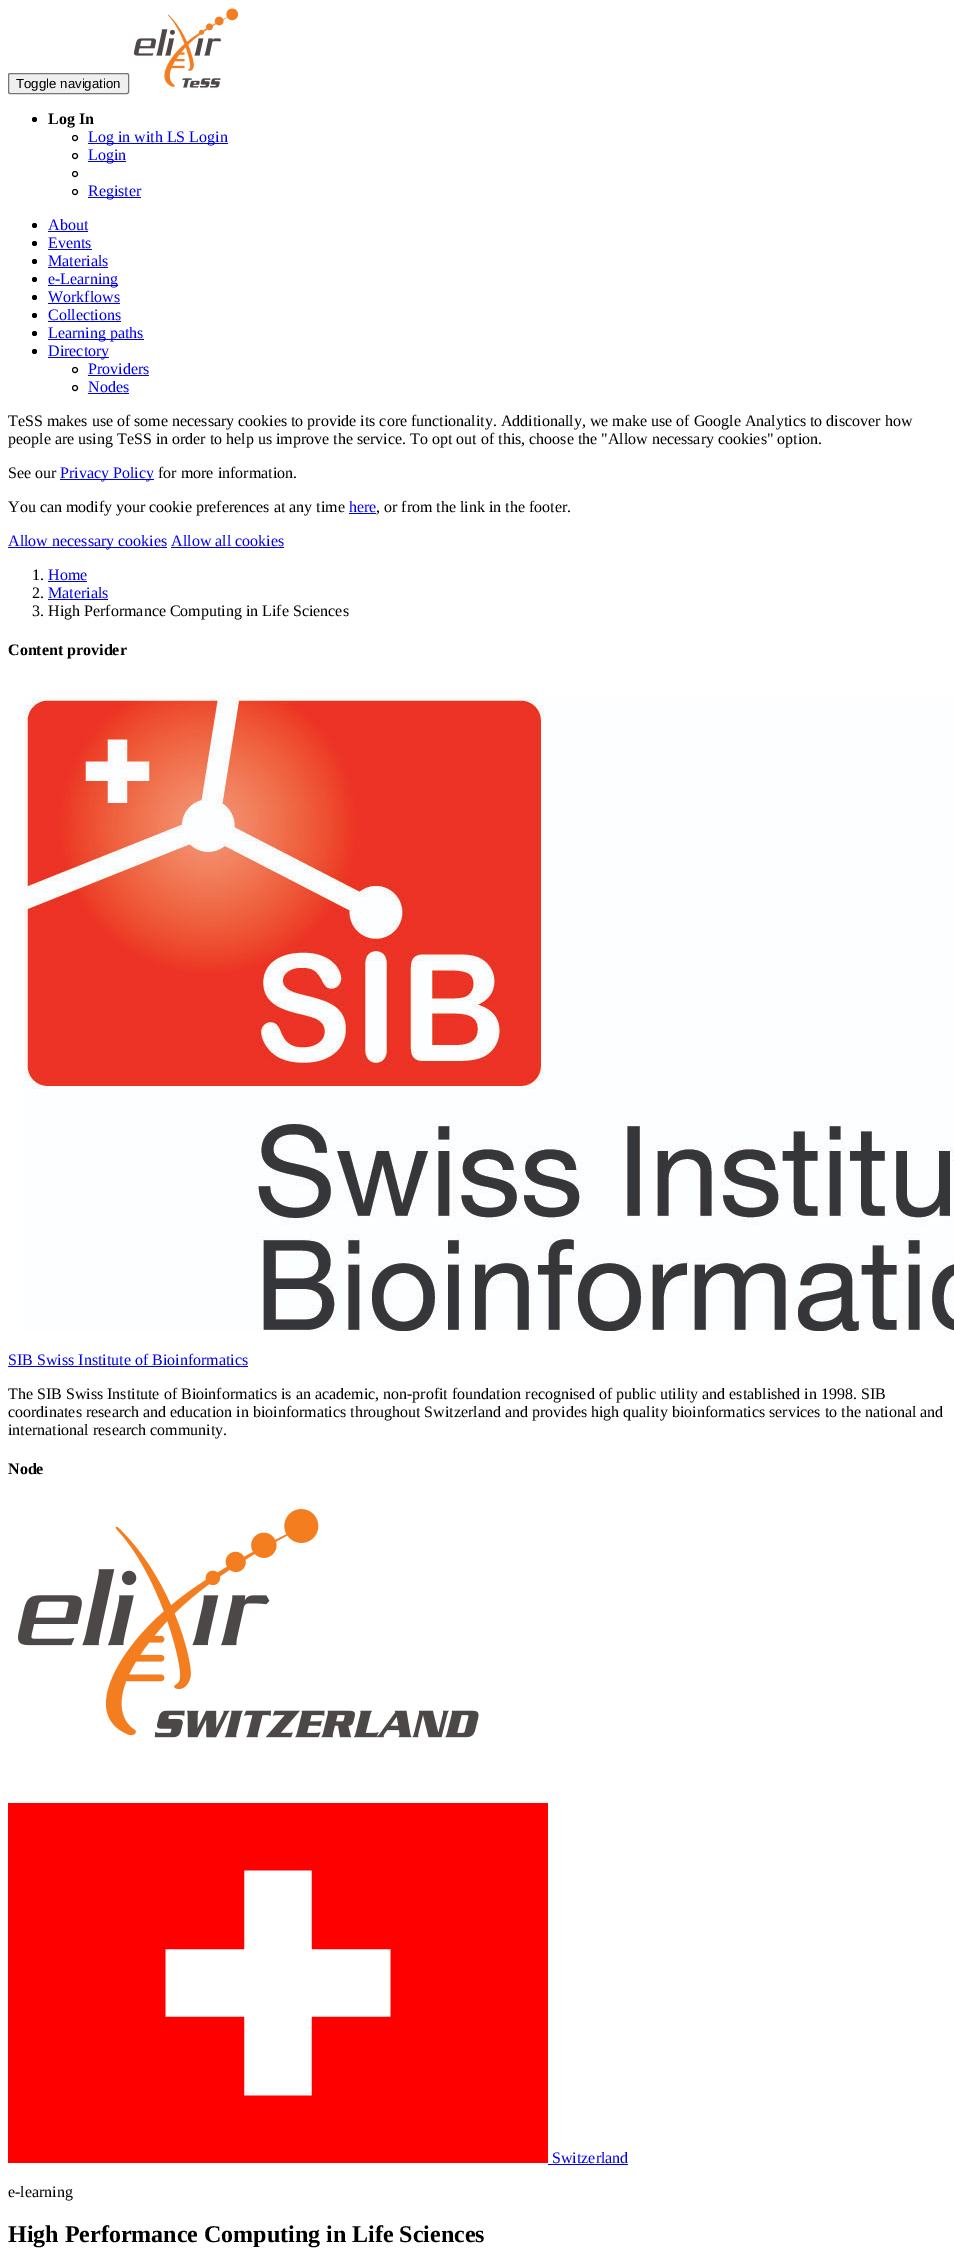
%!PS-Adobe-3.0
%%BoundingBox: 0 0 954 2261
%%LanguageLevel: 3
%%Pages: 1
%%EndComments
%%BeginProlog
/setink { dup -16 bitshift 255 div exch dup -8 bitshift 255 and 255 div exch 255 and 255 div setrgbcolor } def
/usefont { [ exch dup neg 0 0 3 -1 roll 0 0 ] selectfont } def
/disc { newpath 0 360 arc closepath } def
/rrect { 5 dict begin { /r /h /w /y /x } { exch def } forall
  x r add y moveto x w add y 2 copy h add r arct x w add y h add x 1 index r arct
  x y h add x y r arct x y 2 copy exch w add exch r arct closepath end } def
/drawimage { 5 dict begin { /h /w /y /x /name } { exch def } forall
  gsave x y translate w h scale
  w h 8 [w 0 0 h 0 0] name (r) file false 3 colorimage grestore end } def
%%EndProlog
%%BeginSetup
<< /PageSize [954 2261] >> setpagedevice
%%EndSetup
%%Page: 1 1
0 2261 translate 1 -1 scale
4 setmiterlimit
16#FFFFFF setink
0 0 954 2261 rectfill
16#EFEFEF setink
8.5 73.5 120 20 1.5 rrect gsave fill grestore
16#767676 setink
stroke
/LiberationSans-Regular 13.25 usefont
16#000000 setink
16 88 moveto (Toggle navigation) show
(img1.raw) 134 8 104 80 drawimage
34.5 119.5 2.5 disc fill
/LiberationSerif-Bold 16 usefont
48 124 moveto (Log In) show
75 138 2.5 disc stroke
16#0000EE setink
88 143 140 1 rectfill
/LiberationSerif-Regular 16 usefont
88 142 moveto (Log in with LS Login) show
16#000000 setink
75 156 2.5 disc stroke
16#0000EE setink
88 161 38 1 rectfill
88 160 moveto (Login) show
16#000000 setink
75 174 2.5 disc stroke
75 192 2.5 disc stroke
16#0000EE setink
88 197 53 1 rectfill
88 196 moveto (Register) show
16#000000 setink
34.5 225.5 2.5 disc fill
16#0000EE setink
48 230 moveto (About) show
48 231 40 1 rectfill
16#000000 setink
34.5 243.5 2.5 disc fill
16#0000EE setink
48 248 moveto (Events) show
48 249 44 1 rectfill
16#000000 setink
34.5 261.5 2.5 disc fill
16#0000EE setink
48 266 moveto (Materials) show
48 267 60 1 rectfill
16#000000 setink
34.5 279.5 2.5 disc fill
16#0000EE setink
48 285 70 1 rectfill
48 284 moveto (e-Learning) show
16#000000 setink
34.5 297.5 2.5 disc fill
16#0000EE setink
48 302 moveto (Workflows) show
48 303 72 1 rectfill
16#000000 setink
34.5 315.5 2.5 disc fill
16#0000EE setink
48 320 moveto (Collections) show
48 321 73 1 rectfill
16#000000 setink
34.5 333.5 2.5 disc fill
16#0000EE setink
48 339 96 1 rectfill
48 338 moveto (Learning paths) show
16#000000 setink
34.5 351.5 2.5 disc fill
16#0000EE setink
48 357 61 1 rectfill
48 356 moveto (Directory) show
16#000000 setink
75 370 2.5 disc stroke
16#0000EE setink
88 374 moveto (Providers) show
88 375 61 1 rectfill
16#000000 setink
75 388 2.5 disc stroke
16#0000EE setink
88 392 moveto (Nodes) show
88 393 41 1 rectfill
16#000000 setink
[
    [(TeSS makes use of some necessary cookies to provide its core functionality. Additionally, we make use of Google Analytics to discover how) 8 426]
    [(people are using TeSS in order to help us improve the service. To opt out of this, choose the "Allow necessary cookies" option.) 8 444]
    [(See our) 8 478]
] { aload pop moveto show } forall
16#0000EE setink
60 479 94 1 rectfill
60 478 moveto (Privacy Policy) show
16#000000 setink
158 478 moveto (for more information.) show
8 512 moveto (You can modify your cookie preferences at any time) show
16#0000EE setink
349 512 moveto (here) show
349 513 27 1 rectfill
16#000000 setink
376 512 moveto (, or from the link in the footer.) show
16#0000EE setink
8 547 159 1 rectfill
8 546 moveto (Allow necessary cookies Allow all cookies) show
171 547 113 1 rectfill
16#000000 setink
32 580 moveto (1.) show
16#0000EE setink
48 580 moveto (Home) show
48 581 39 1 rectfill
16#000000 setink
32 598 moveto (2.) show
16#0000EE setink
48 598 moveto (Materials) show
48 599 60 1 rectfill
16#000000 setink
32 616 moveto (3. High Performance Computing in Life Sciences) show
/LiberationSerif-Bold 16 usefont
8 655 moveto (Content provider) show
(img2.raw) 24 697 930 634 drawimage
/LiberationSerif-Regular 16 usefont
16#0000EE setink
8 1365 moveto (SIB Swiss Institute of Bioinformatics) show
8 1366 240 1 rectfill
16#000000 setink
[
    [(The SIB Swiss Institute of Bioinformatics is an academic, non-profit foundation recognised of public utility and established in 1998. SIB) 8 1399]
    [(coordinates research and education in bioinformatics throughout Switzerland and provides high quality bioinformatics services to the national and) 8 1417]
    [(international research community.) 8 1435]
] { aload pop moveto show } forall
/LiberationSerif-Bold 16 usefont
8 1474 moveto (Node) show
(img3.raw) 18 1509 461 229 drawimage
(img4.raw) 8 1803 540 360 drawimage
/LiberationSerif-Regular 16 usefont
16#0000EE setink
552 2163 moveto (Switzerland) show
548 2164 80 1 rectfill
16#000000 setink
8 2197 moveto (e-learning) show
/LiberationSerif-Bold 24 usefont
8 2242 moveto (High Performance Computing in Life Sciences) show
showpage
%%EOF
